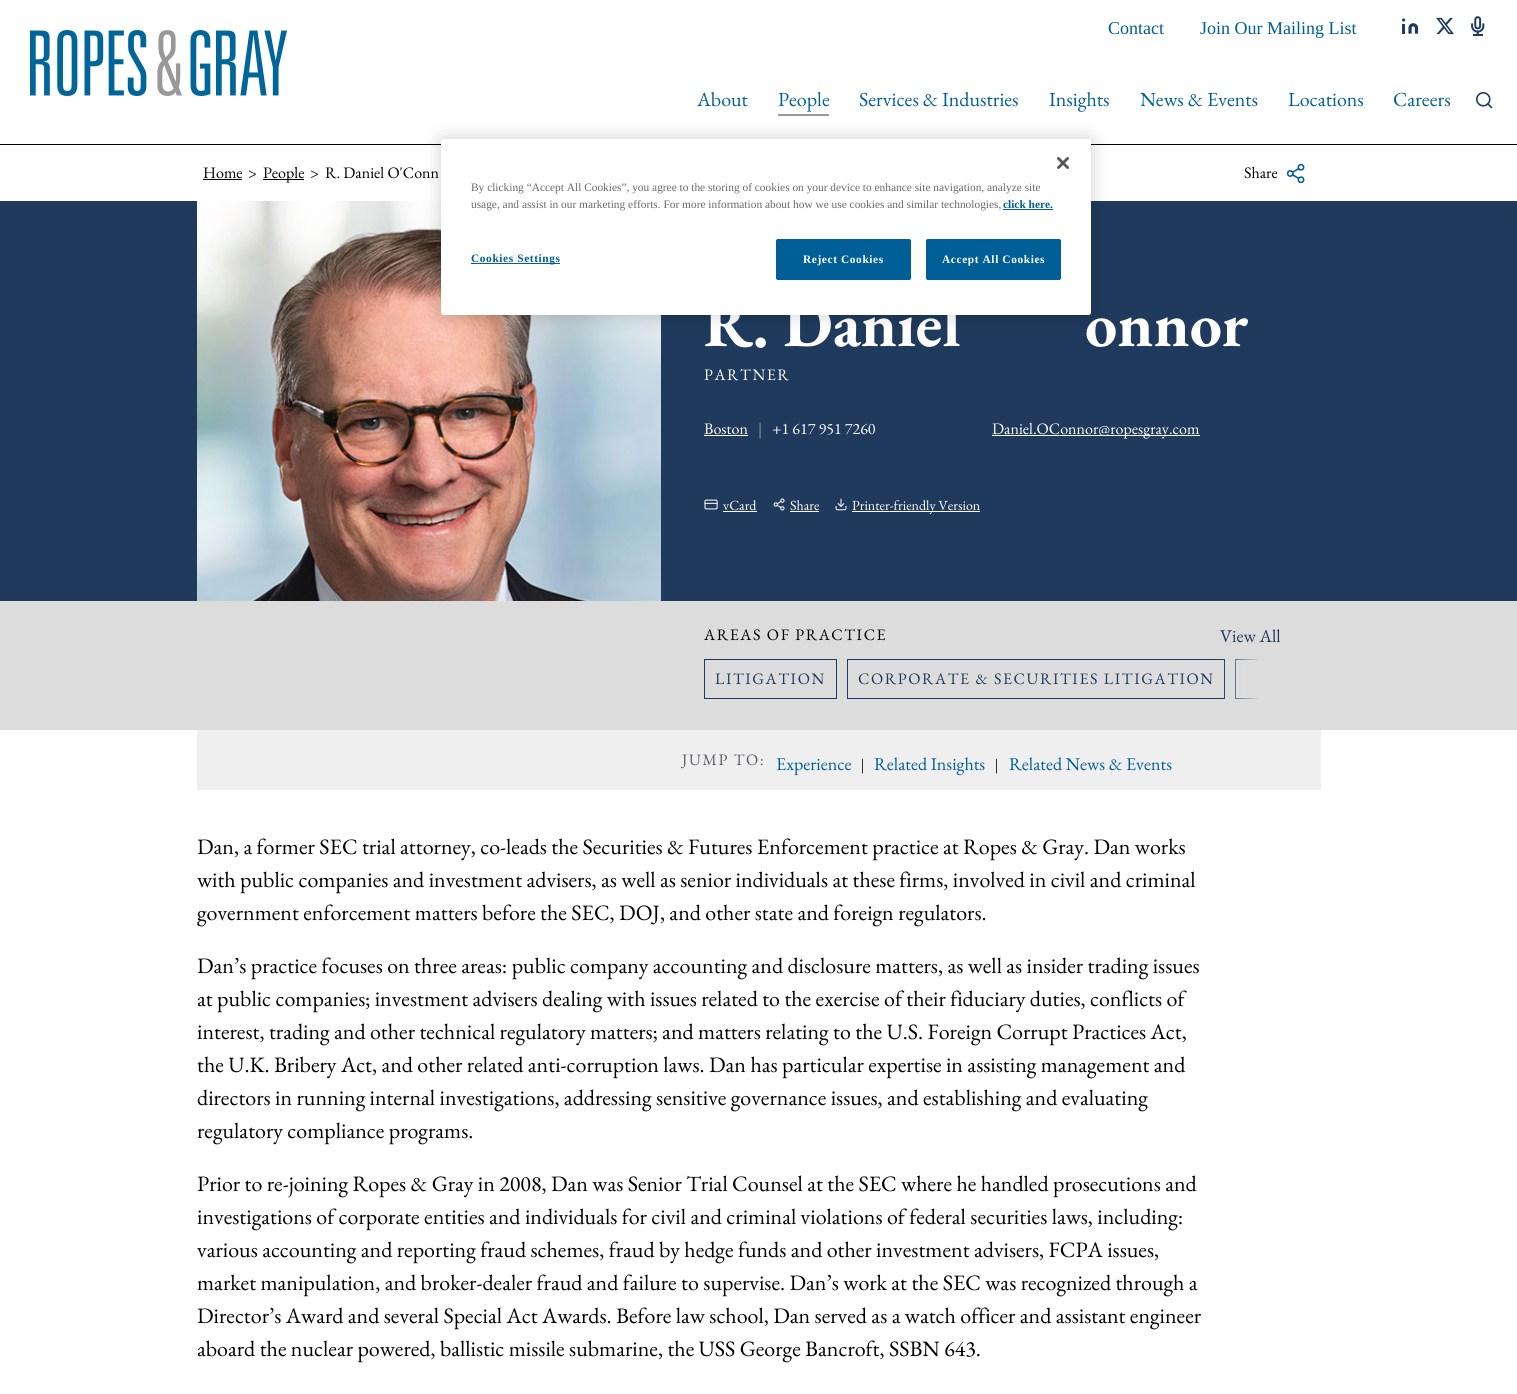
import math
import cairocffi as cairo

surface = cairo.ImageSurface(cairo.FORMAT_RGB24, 1517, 1394)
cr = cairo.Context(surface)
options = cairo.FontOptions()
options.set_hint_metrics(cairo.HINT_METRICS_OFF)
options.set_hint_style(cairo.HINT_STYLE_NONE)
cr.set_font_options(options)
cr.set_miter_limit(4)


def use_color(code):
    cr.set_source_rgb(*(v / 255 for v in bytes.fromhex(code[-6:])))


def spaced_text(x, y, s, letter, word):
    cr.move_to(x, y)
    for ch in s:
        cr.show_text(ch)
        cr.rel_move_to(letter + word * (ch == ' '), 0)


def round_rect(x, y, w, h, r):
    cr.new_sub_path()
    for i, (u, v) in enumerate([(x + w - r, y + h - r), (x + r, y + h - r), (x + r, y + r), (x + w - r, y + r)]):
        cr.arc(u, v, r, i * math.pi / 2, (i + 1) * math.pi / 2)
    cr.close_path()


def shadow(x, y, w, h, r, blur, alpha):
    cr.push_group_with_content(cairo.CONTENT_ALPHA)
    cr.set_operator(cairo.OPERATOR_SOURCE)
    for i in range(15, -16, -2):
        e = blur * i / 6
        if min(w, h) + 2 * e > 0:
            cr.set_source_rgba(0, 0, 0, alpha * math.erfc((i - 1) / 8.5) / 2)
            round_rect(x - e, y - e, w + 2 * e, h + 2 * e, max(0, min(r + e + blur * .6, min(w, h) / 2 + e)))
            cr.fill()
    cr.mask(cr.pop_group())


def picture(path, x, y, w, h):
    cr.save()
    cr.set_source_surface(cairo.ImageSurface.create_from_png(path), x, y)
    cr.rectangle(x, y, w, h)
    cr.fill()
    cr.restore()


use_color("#ffffff")
cr.paint()
use_color("#000000")
cr.rectangle(0, 144, 1517, 1)
cr.fill()
picture("img1.png", 30, 30, 257, 66)
cr.select_font_face("Liberation Serif")
cr.set_font_size(18)
use_color("#005e96")
cr.move_to(1108, 34)
cr.show_text("Contact")
cr.move_to(1200, 34)
cr.show_text("Join Our Mailing List")
picture("img2.png", 1402, 18, 17, 16)
picture("img3.png", 1436, 17, 18, 18)
picture("img4.png", 1471, 16, 14, 20)
cr.select_font_face("EB Garamond")
cr.set_font_size(20)
cr.move_to(697, 106)
cr.show_text("About")
cr.move_to(778, 106)
cr.show_text("People")
use_color("#999999")
cr.rectangle(778, 114, 51, 2)
cr.fill()
use_color("#005e96")
cr.move_to(859, 106)
cr.show_text("Services & Industries")
cr.move_to(1049, 106)
cr.show_text("Insights")
cr.move_to(1140, 106)
cr.show_text("News & Events")
cr.move_to(1288, 106)
cr.show_text("Locations")
cr.move_to(1393, 106)
cr.show_text("Careers")
picture("img5.png", 1476, 92, 17, 17)
cr.set_font_size(16)
use_color("#000000")
cr.move_to(203, 178)
cr.show_text("Home")
cr.rectangle(203, 179, 39, 1)
cr.fill()
cr.move_to(248, 178)
cr.show_text(">")
cr.rectangle(263, 179, 41, 1)
cr.fill()
cr.move_to(263, 178)
cr.show_text("People")
cr.move_to(310, 178)
cr.show_text(">")
cr.move_to(325, 178)
cr.show_text("R. Daniel O'Conn")
cr.move_to(1244, 178)
cr.show_text("Share")
picture("img6.png", 1286, 163, 19, 21)
use_color("#1f3a5d")
cr.rectangle(0, 201, 1517, 400)
cr.fill()
picture("img7.png", 197, 201, 464, 400)
cr.select_font_face("EB Garamond", cairo.FONT_SLANT_NORMAL, cairo.FONT_WEIGHT_BOLD)
cr.set_font_size(64)
use_color("#ffffff")
cr.move_to(704, 346)
cr.show_text("R. Daniel")
cr.move_to(1085, 346)
cr.show_text("onnor")
cr.select_font_face("EB Garamond")
cr.set_font_size(16)
spaced_text(704, 380, "PARTNER", 1.6, 0)
cr.move_to(704, 434)
cr.show_text("Boston")
cr.rectangle(704, 435, 44, 1)
cr.fill()
use_color("#999999")
cr.move_to(758, 434)
cr.show_text("|")
use_color("#ffffff")
cr.move_to(772, 434)
cr.show_text("+1 617 951 7260")
cr.rectangle(992, 435, 208, 1)
cr.fill()
cr.move_to(992, 434)
cr.show_text("Daniel.OConnor@ropesgray.com")
picture("img8.png", 704, 499, 14, 11)
cr.set_font_size(14)
cr.move_to(723, 510)
cr.show_text("vCard")
cr.rectangle(723, 511, 34, 1)
cr.fill()
picture("img9.png", 773, 498, 12, 13)
cr.move_to(790, 510)
cr.show_text("Share")
cr.rectangle(790, 511, 29, 1)
cr.fill()
picture("img10.png", 835, 498, 12, 13)
cr.rectangle(852, 511, 128, 1)
cr.fill()
cr.move_to(852, 510)
cr.show_text("Printer-friendly Version")
use_color("#dcdcdc")
cr.rectangle(0, 601, 1517, 129)
cr.fill()
cr.set_font_size(16)
use_color("#000000")
spaced_text(704, 640, "AREAS OF PRACTICE", 1.6, 0)
cr.set_font_size(18)
use_color("#1f3a5d")
cr.move_to(1220, 642)
cr.show_text("View All")
cr.rectangle(704.5, 659.5, 132, 39)
cr.set_line_width(1)
cr.stroke()
cr.set_font_size(16)
spaced_text(715, 684, "LITIGATION", 1.6, 0)
cr.rectangle(847.5, 659.5, 377, 39)
cr.stroke()
spaced_text(858, 684, "CORPORATE & SECURITIES LITIGATION", 1.6, 0)
cr.save()
cr.rectangle(704, 649, 577, 60)
cr.clip()
cr.rectangle(1235.5, 659.5, 278, 39)
cr.stroke()
cr.restore()
gradient = cairo.LinearGradient(1281, 679, 1221, 679)
gradient.add_color_stop_rgba(0.34, 0.863, 0.863, 0.863, 1)
gradient.add_color_stop_rgba(1, 0.863, 0.863, 0.863, 0)
cr.set_source(gradient)
cr.rectangle(1222, 659, 59, 40)
cr.fill()
use_color("#f0efef")
cr.rectangle(197, 730, 1124, 60)
cr.fill()
use_color("#565f65")
spaced_text(682, 765, "JUMP TO:", 1.6, 0)
cr.set_font_size(18)
use_color("#005e96")
cr.move_to(776, 770)
cr.show_text("Experience")
cr.select_font_face("Liberation Serif")
cr.set_font_size(16)
use_color("#000000")
cr.move_to(861, 770)
cr.show_text("|")
cr.select_font_face("EB Garamond")
cr.set_font_size(18)
use_color("#005e96")
cr.move_to(874, 770)
cr.show_text("Related Insights")
cr.select_font_face("Liberation Serif")
cr.set_font_size(16)
use_color("#000000")
cr.move_to(995, 770)
cr.show_text("|")
cr.select_font_face("EB Garamond")
cr.set_font_size(18)
use_color("#005e96")
cr.move_to(1009, 770)
cr.show_text("Related News & Events")
cr.set_font_size(22)
use_color("#000000")
cr.move_to(197, 854)
cr.show_text("Dan, a former SEC trial attorney, co-leads the Securities & Futures Enforcement practice at Ropes & Gray. Dan works")
cr.move_to(197, 887)
cr.show_text("with public companies and investment advisers, as well as senior individuals at these firms, involved in civil and criminal")
cr.move_to(197, 920)
cr.show_text("government enforcement matters before the SEC, DOJ, and other state and foreign regulators.")
cr.move_to(197, 973)
cr.show_text("Dan’s practice focuses on three areas: public company accounting and disclosure matters, as well as insider trading issues")
cr.move_to(197, 1006)
cr.show_text("at public companies; investment advisers dealing with issues related to the exercise of their fiduciary duties, conflicts of")
cr.move_to(197, 1039)
cr.show_text("interest, trading and other technical regulatory matters; and matters relating to the U.S. Foreign Corrupt Practices Act,")
cr.move_to(197, 1072)
cr.show_text("the U.K. Bribery Act, and other related anti-corruption laws. Dan has particular expertise in assisting management and")
cr.move_to(197, 1105)
cr.show_text("directors in running internal investigations, addressing sensitive governance issues, and establishing and evaluating")
cr.move_to(197, 1138)
cr.show_text("regulatory compliance programs.")
cr.move_to(197, 1191)
cr.show_text("Prior to re-joining Ropes & Gray in 2008, Dan was Senior Trial Counsel at the SEC where he handled prosecutions and")
cr.move_to(197, 1224)
cr.show_text("investigations of corporate entities and individuals for civil and criminal violations of federal securities laws, including:")
cr.move_to(197, 1257)
cr.show_text("various accounting and reporting fraud schemes, fraud by hedge funds and other investment advisers, FCPA issues,")
cr.move_to(197, 1290)
cr.show_text("market manipulation, and broker-dealer fraud and failure to supervise. Dan’s work at the SEC was recognized through a")
cr.move_to(197, 1323)
cr.show_text("Director’s Award and several Special Act Awards. Before law school, Dan served as a watch officer and assistant engineer")
cr.move_to(197, 1356)
cr.show_text("aboard the nuclear powered, ballistic missile submarine, the USS George Bancroft, SSBN 643.")
use_color("#000000")
shadow(441, 139, 650, 176, 2.5, 9, 0.2)
use_color("#ffffff")
round_rect(441, 139, 650, 176, 2.5)
cr.fill()
picture("img11.png", 1057, 157, 12, 12)
cr.select_font_face("Liberation Serif")
cr.set_font_size(11.38)
use_color("#696969")
cr.move_to(471, 191)
cr.show_text("By clicking “Accept All Cookies”, you agree to the storing of cookies on your device to enhance site navigation, analyze site")
cr.move_to(471, 208)
cr.show_text("usage, and assist in our marketing efforts. For more information about how we use cookies and similar technologies,")
cr.select_font_face("Liberation Serif", cairo.FONT_SLANT_NORMAL, cairo.FONT_WEIGHT_BOLD)
use_color("#005e96")
cr.move_to(1003, 208)
cr.show_text("click here.")
use_color("#005f96")
cr.rectangle(1003, 209, 50, 1)
cr.fill()
cr.rectangle(471, 263, 89, 1)
cr.fill()
use_color("#005e96")
spaced_text(471, 262, "Cookies Settings", 0.6, 0)
use_color("#005f96")
round_rect(776.5, 239.5, 134, 40, 1.5)
cr.fill_preserve()
cr.stroke()
use_color("#ffffff")
spaced_text(803, 263, "Reject Cookies", 0.6, 0)
use_color("#005f96")
round_rect(926.5, 239.5, 134, 40, 1.5)
cr.fill_preserve()
cr.stroke()
use_color("#ffffff")
spaced_text(942, 263, "Accept All Cookies", 0.6, 0)
surface.write_to_png("result.png")
